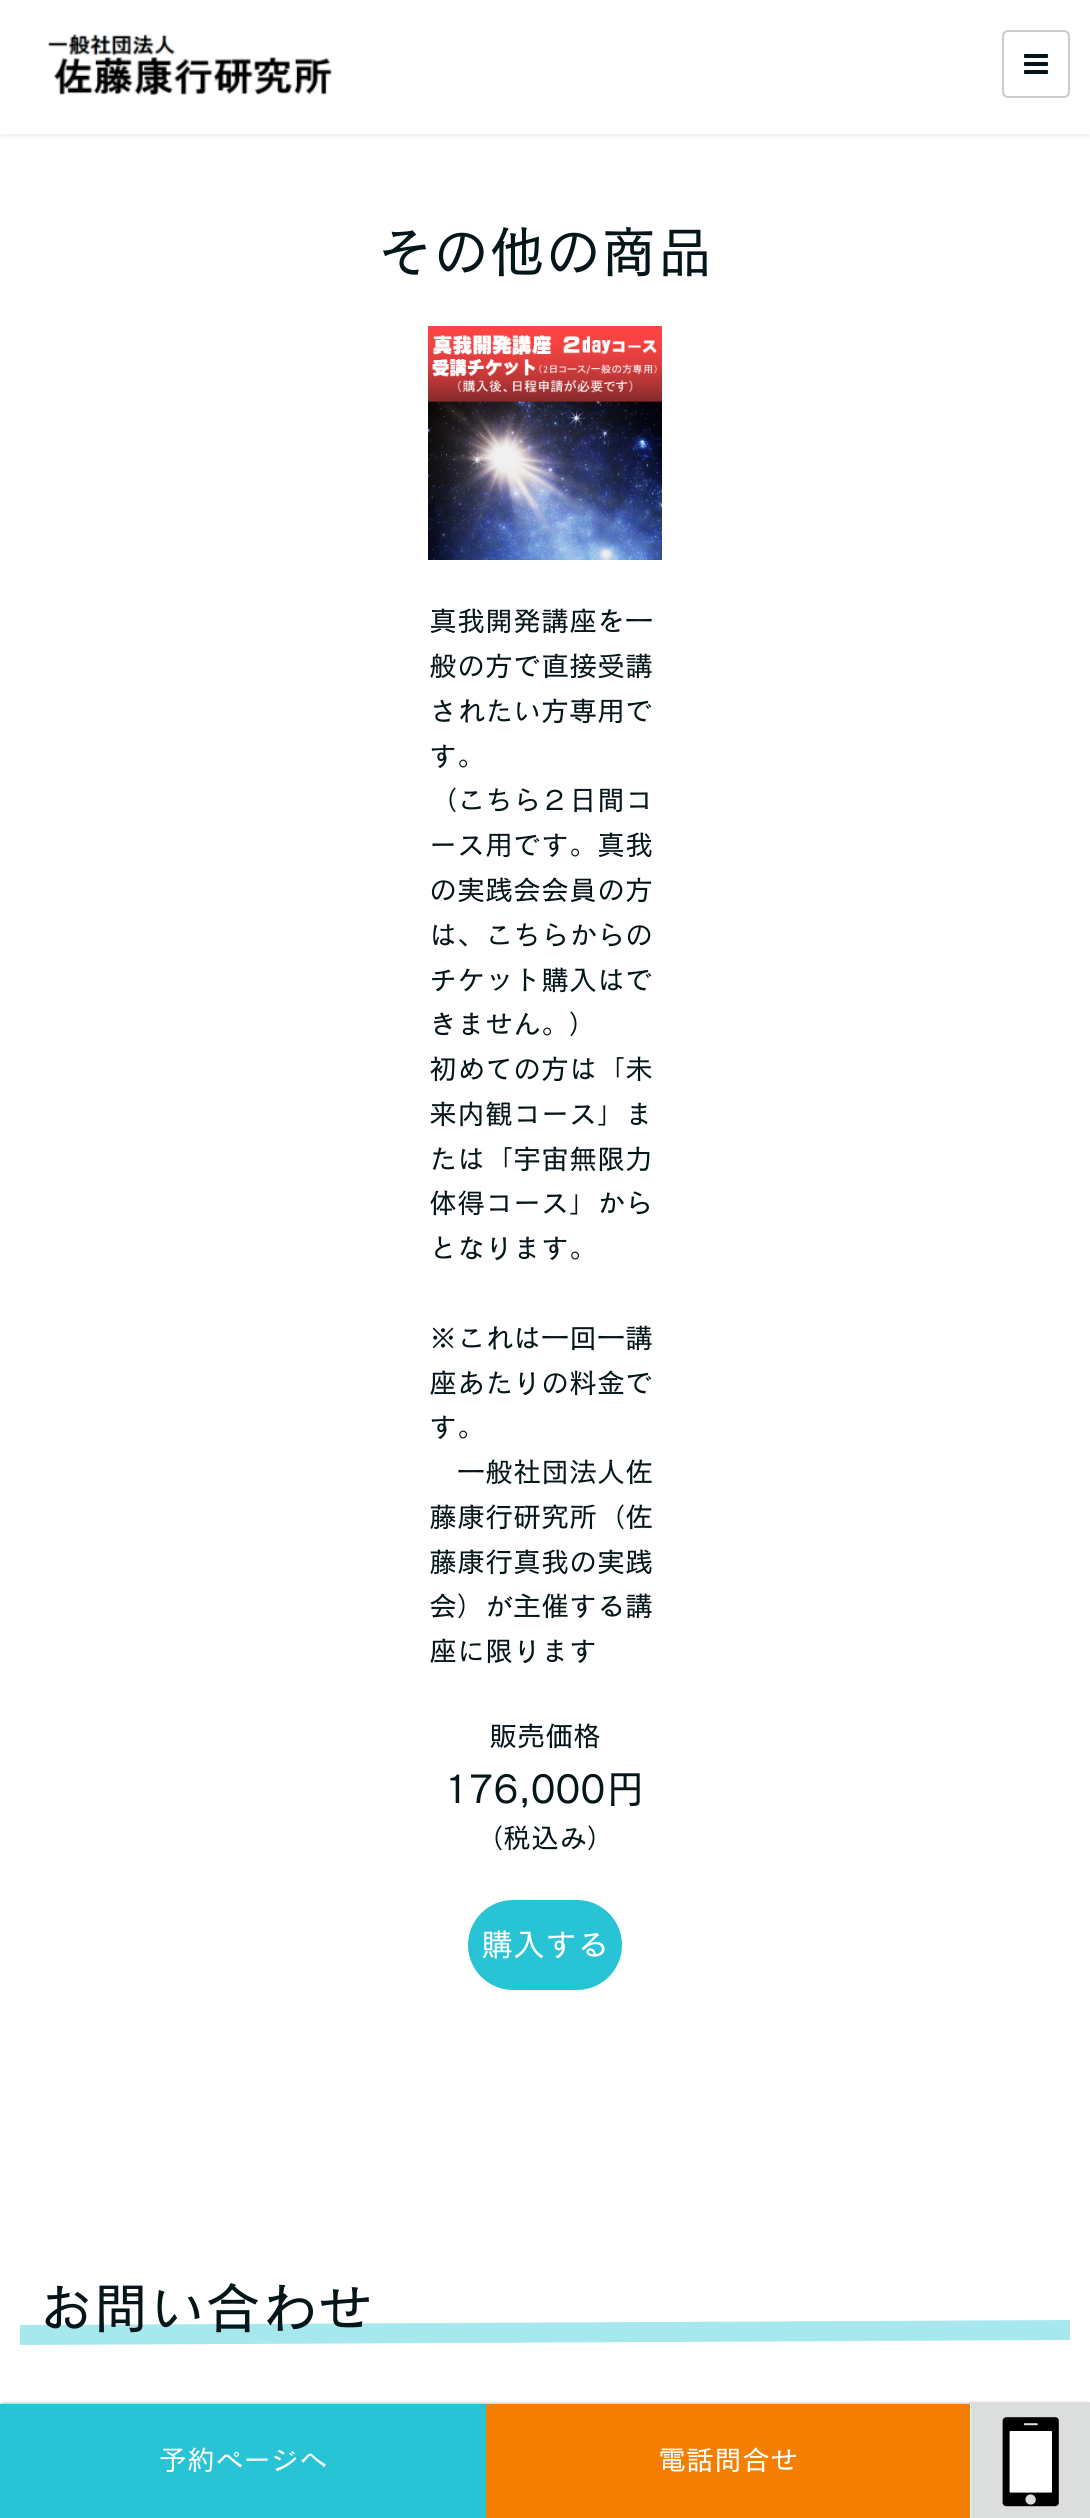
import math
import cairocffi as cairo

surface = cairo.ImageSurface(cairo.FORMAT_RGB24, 1090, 2518)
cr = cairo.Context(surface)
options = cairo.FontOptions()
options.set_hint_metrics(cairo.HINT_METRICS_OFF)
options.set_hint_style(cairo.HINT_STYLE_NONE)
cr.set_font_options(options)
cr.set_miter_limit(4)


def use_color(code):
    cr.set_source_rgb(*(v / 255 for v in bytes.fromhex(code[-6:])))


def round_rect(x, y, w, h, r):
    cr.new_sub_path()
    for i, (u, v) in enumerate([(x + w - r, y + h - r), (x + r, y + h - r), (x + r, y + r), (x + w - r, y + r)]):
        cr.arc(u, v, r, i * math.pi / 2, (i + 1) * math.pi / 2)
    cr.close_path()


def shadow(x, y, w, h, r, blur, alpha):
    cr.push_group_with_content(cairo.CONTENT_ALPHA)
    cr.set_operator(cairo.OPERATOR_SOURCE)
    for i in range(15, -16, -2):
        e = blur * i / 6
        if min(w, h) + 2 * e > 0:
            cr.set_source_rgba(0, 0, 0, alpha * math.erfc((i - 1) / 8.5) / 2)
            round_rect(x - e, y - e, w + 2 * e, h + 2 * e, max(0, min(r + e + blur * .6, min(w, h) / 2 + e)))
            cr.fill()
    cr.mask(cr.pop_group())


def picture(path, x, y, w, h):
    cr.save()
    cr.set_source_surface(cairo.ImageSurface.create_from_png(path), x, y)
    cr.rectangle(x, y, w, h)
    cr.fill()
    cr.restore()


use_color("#ffffff")
cr.paint()
cr.select_font_face("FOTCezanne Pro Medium")
cr.set_font_size(56)
use_color("#05161a")
cr.move_to(377, 272)
cr.show_text("その他の商品")
picture("img1.png", 428, 326, 234, 234)
cr.set_font_size(28)
cr.move_to(429, 631)
cr.show_text("真我開発講座を一")
cr.move_to(429, 676)
cr.show_text("般の方で直接受講")
cr.move_to(429, 721)
cr.show_text("されたい方専用で")
cr.move_to(429, 766)
cr.show_text("す。")
cr.move_to(429, 810)
cr.show_text("（こちら２日間コ")
cr.move_to(429, 855)
cr.show_text("ース用です。真我")
cr.move_to(429, 900)
cr.show_text("の実践会会員の方")
cr.move_to(429, 945)
cr.show_text("は、こちらからの")
cr.move_to(429, 990)
cr.show_text("チケット購入はで")
cr.move_to(429, 1034)
cr.show_text("きません。）")
cr.move_to(429, 1079)
cr.show_text("初めての方は「未")
cr.move_to(429, 1124)
cr.show_text("来内観コース」ま")
cr.move_to(429, 1169)
cr.show_text("たは「宇宙無限力")
cr.move_to(429, 1213)
cr.show_text("体得コース」から")
cr.move_to(429, 1258)
cr.show_text("となります。")
cr.move_to(429, 1348)
cr.show_text("※これは一回一講")
cr.move_to(429, 1393)
cr.show_text("座あたりの料金で")
cr.move_to(429, 1437)
cr.show_text("す。")
cr.move_to(457, 1482)
cr.show_text("一般社団法人佐")
cr.move_to(429, 1527)
cr.show_text("藤康行研究所（佐")
cr.move_to(429, 1572)
cr.show_text("藤康行真我の実践")
cr.move_to(429, 1616)
cr.show_text("会）が主催する講")
cr.move_to(429, 1661)
cr.show_text("座に限ります")
cr.move_to(489, 1746)
cr.show_text("販売価格")
cr.set_font_size(40)
cr.move_to(444, 1803)
cr.show_text("176,000円")
cr.set_font_size(28)
cr.move_to(475, 1848)
cr.show_text("（税込み）")
use_color("#28c3d4")
round_rect(468, 1900, 154, 90, 45)
cr.fill()
cr.set_font_size(32)
use_color("#ffffff")
cr.move_to(481, 1956)
cr.show_text("購入する")
use_color("#a7e7ee")
cr.new_path()
cr.move_to(20, 2325)
cr.line_to(1070, 2320)
cr.line_to(1070, 2340)
cr.line_to(20, 2345)
cr.close_path()
cr.fill()
cr.set_font_size(56)
use_color("#05161a")
cr.move_to(37, 2328)
cr.show_text("お問い合わせ")
cr.save()
cr.rectangle(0, 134, 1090, 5)
cr.clip()
use_color("#dcdcdc")
shadow(0, 2, 1090, 134, 0, 2, 0.5)
cr.restore()
picture("img2.png", 47, 34, 285, 61)
round_rect(1003, 31, 66, 66, 5)
use_color("#cccccc")
cr.stroke()
picture("img3.png", 1024, 54, 24, 20)
use_color("#000000")
shadow(2, 2404, 1086, 110, 0, 2, 0.4)
use_color("#ffffff")
cr.rectangle(970, 2404, 1, 114)
cr.fill()
use_color("#28c3d4")
cr.rectangle(0, 2404, 486, 114)
cr.fill()
cr.set_font_size(28)
use_color("#ffffff")
cr.move_to(159, 2470)
cr.show_text("予約ページへ")
use_color("#f47e00")
cr.rectangle(486, 2404, 484, 114)
cr.fill()
use_color("#ffffff")
cr.move_to(658, 2470)
cr.show_text("電話問合せ")
picture("img4.png", 971, 2402, 119, 116)
surface.write_to_png("result.png")
